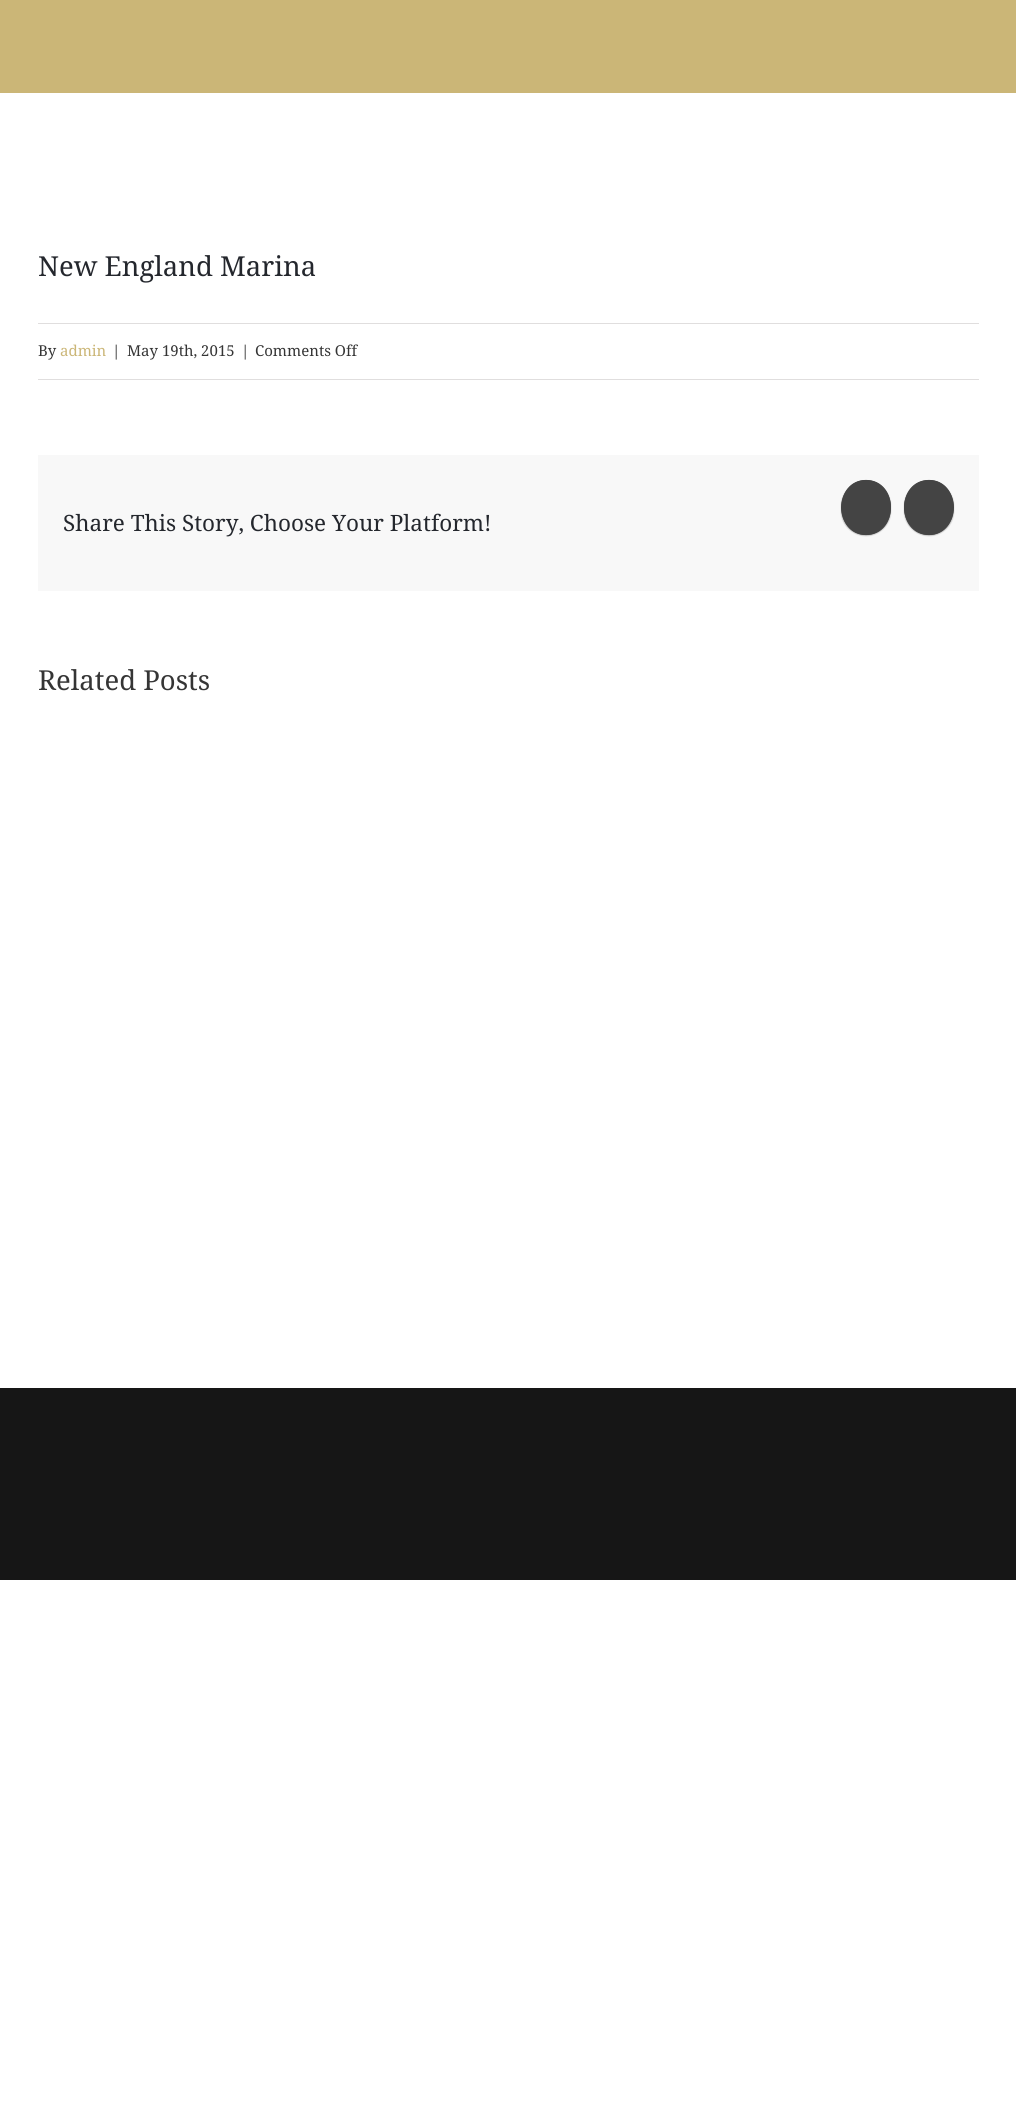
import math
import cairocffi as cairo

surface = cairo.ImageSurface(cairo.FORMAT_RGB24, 1016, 2108)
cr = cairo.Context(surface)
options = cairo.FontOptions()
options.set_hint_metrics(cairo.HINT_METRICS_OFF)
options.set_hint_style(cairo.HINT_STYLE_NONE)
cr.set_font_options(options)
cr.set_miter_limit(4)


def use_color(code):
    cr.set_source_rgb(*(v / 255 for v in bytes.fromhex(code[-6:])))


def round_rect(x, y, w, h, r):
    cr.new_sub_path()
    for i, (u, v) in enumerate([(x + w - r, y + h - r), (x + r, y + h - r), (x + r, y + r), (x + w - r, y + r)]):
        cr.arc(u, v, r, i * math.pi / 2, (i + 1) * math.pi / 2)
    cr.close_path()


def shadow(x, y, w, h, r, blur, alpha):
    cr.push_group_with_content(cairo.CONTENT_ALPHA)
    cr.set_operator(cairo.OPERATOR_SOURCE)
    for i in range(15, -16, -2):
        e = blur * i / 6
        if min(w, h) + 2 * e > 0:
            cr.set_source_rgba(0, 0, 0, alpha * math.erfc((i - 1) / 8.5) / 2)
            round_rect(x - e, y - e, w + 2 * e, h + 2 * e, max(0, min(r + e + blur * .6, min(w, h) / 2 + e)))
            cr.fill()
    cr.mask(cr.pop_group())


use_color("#ffffff")
cr.paint()
use_color("#cbb677")
cr.rectangle(0, 0, 1016, 93)
cr.fill()
cr.select_font_face("Droid Serif")
cr.set_font_size(27.5)
use_color("#24272d")
cr.move_to(38, 276)
cr.show_text("New England Marina")
use_color("#e0dede")
cr.rectangle(38, 323, 941, 1)
cr.fill()
cr.rectangle(38, 379, 941, 1)
cr.fill()
cr.set_font_size(15)
use_color("#353535")
cr.move_to(38, 356)
cr.show_text("By")
use_color("#cbb677")
cr.move_to(60, 356)
cr.show_text("admin")
use_color("#353535")
cr.move_to(112, 356)
cr.show_text("|")
cr.move_to(127, 356)
cr.show_text("May 19th, 2015")
cr.move_to(241, 356)
cr.show_text("|")
cr.move_to(255, 356)
cr.show_text("Comments Off")
use_color("#f8f8f8")
cr.rectangle(38, 455, 941, 136)
cr.fill()
cr.set_font_size(22.5)
use_color("#24272d")
cr.move_to(63, 531)
cr.show_text("Share This Story, Choose Your Platform!")
use_color("#000000")
shadow(841, 481, 50, 55, 25, 0.5, 0.2)
use_color("#444444")
cr.new_path()
cr.move_to(866, 480)
cr.curve_to(880, 480, 891, 492.5, 891, 507.5)
cr.curve_to(891, 522.5, 880, 535, 866, 535)
cr.curve_to(852, 535, 841, 522.5, 841, 507.5)
cr.curve_to(841, 492.5, 852, 480, 866, 480)
cr.close_path()
cr.fill()
cr.new_path()
cr.move_to(866, 480.5)
cr.curve_to(898.5, 480.5, 898.5, 534.5, 866, 534.5)
cr.curve_to(834, 534.5, 834, 480.5, 866, 480.5)
cr.close_path()
cr.set_line_width(1.2)
cr.stroke()
use_color("#000000")
shadow(904, 481, 50, 55, 25, 0.5, 0.2)
use_color("#444444")
cr.new_path()
cr.move_to(929, 480)
cr.curve_to(943, 480, 954, 492.5, 954, 507.5)
cr.curve_to(954, 522.5, 943, 535, 929, 535)
cr.curve_to(915, 535, 904, 522.5, 904, 507.5)
cr.curve_to(904, 492.5, 915, 480, 929, 480)
cr.close_path()
cr.fill()
cr.new_path()
cr.move_to(929, 480.5)
cr.curve_to(961, 480.5, 961, 534.5, 929, 534.5)
cr.curve_to(896.5, 534.5, 896.5, 480.5, 929, 480.5)
cr.close_path()
cr.stroke()
cr.set_font_size(27.5)
use_color("#353535")
cr.move_to(38, 690)
cr.show_text("Related Posts")
use_color("#161616")
cr.rectangle(0, 1388, 1016, 192)
cr.fill()
surface.write_to_png("result.png")
